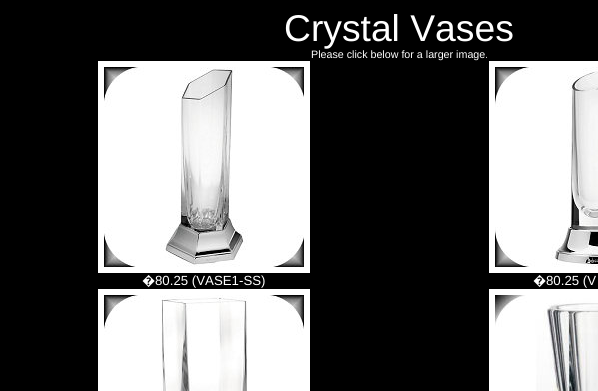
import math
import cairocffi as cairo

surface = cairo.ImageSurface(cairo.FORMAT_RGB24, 598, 391)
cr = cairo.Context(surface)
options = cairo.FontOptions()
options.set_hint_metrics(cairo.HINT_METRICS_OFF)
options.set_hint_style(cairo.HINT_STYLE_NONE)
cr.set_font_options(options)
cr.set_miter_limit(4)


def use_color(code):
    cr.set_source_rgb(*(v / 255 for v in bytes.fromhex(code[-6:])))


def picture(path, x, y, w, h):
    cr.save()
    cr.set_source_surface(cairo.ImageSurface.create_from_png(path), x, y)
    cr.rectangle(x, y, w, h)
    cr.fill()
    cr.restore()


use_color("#000000")
cr.paint()
cr.select_font_face("Liberation Sans")
cr.set_font_size(37.25)
use_color("#ffffff")
cr.move_to(284, 41)
cr.show_text("Crystal Vases")
cr.set_font_size(10.7)
cr.move_to(311, 58)
cr.show_text("Please click below for a larger image.")
cr.rectangle(98, 61, 212, 212)
cr.fill()
picture("img1.png", 104, 67, 200, 200)
cr.select_font_face("Noto Sans")
cr.set_font_size(13.25)
cr.move_to(142, 285)
cr.show_text("�")
cr.select_font_face("Liberation Sans")
cr.move_to(155, 285)
cr.show_text("80.25 (VASE1-SS)")
cr.rectangle(489, 61, 109, 212)
cr.fill()
picture("img2.png", 495, 67, 103, 200)
cr.select_font_face("Noto Sans")
cr.move_to(533, 285)
cr.show_text("�")
cr.select_font_face("Liberation Sans")
cr.move_to(546, 285)
cr.show_text("80.25 (V")
cr.rectangle(98, 289, 212, 102)
cr.fill()
picture("img3.png", 104, 295, 200, 96)
cr.rectangle(489, 289, 109, 102)
cr.fill()
picture("img4.png", 495, 295, 103, 96)
surface.write_to_png("result.png")
